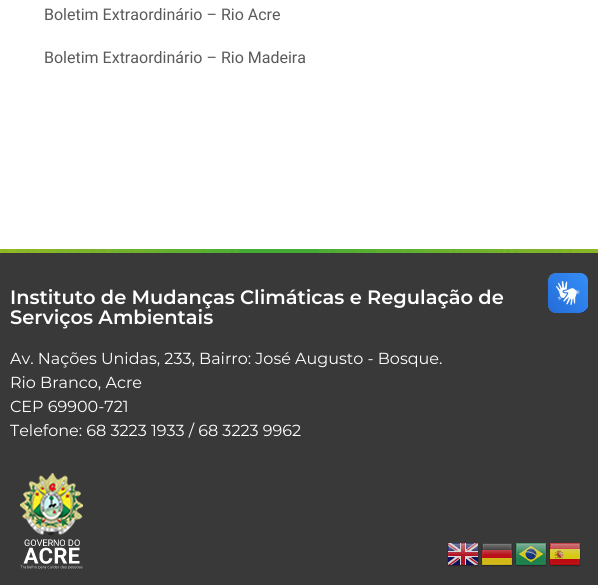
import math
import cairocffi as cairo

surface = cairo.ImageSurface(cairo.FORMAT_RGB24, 598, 585)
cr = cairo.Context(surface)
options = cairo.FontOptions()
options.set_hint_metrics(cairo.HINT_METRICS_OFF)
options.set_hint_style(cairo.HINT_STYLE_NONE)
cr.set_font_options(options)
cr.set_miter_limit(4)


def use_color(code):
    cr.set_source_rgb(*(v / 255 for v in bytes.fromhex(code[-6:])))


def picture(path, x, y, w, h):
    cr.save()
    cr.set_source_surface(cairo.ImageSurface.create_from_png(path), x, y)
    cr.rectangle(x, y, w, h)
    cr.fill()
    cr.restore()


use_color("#ffffff")
cr.paint()
cr.select_font_face("Heebo")
cr.set_font_size(16)
use_color("#5a5a5a")
cr.move_to(44, 20)
cr.show_text("Boletim Extraordinário – Rio Acre")
cr.move_to(44, 63)
cr.show_text("Boletim Extraordinário – Rio Madeira")
picture("img1.png", 0, 249, 598, 4)
use_color("#393939")
cr.rectangle(0, 253, 598, 332)
cr.fill()
cr.select_font_face("Montserrat SemiBold")
cr.set_font_size(19.4)
use_color("#ffffff")
cr.move_to(10, 304)
cr.show_text("Instituto de Mudanças Climáticas e Regulação de")
cr.move_to(10, 324)
cr.show_text("Serviços Ambientais")
cr.select_font_face("Montserrat")
cr.set_font_size(16)
cr.move_to(10, 364)
cr.show_text("Av. Nações Unidas, 233, Bairro: José Augusto - Bosque.")
cr.move_to(10, 388)
cr.show_text("Rio Branco, Acre")
cr.move_to(10, 412)
cr.show_text("CEP 69900-721")
cr.move_to(10, 436)
cr.show_text("Telefone: 68 3223 1933 / 68 3223 9962")
picture("img2.png", 20, 473, 63, 96)
picture("img3.png", 548, 273, 40, 40)
picture("img4.png", 548, 273, 40, 40)
picture("img5.png", 447, 543, 32, 24)
picture("img6.png", 481, 543, 32, 24)
picture("img7.png", 515, 543, 32, 24)
picture("img8.png", 549, 543, 32, 24)
surface.write_to_png("result.png")
